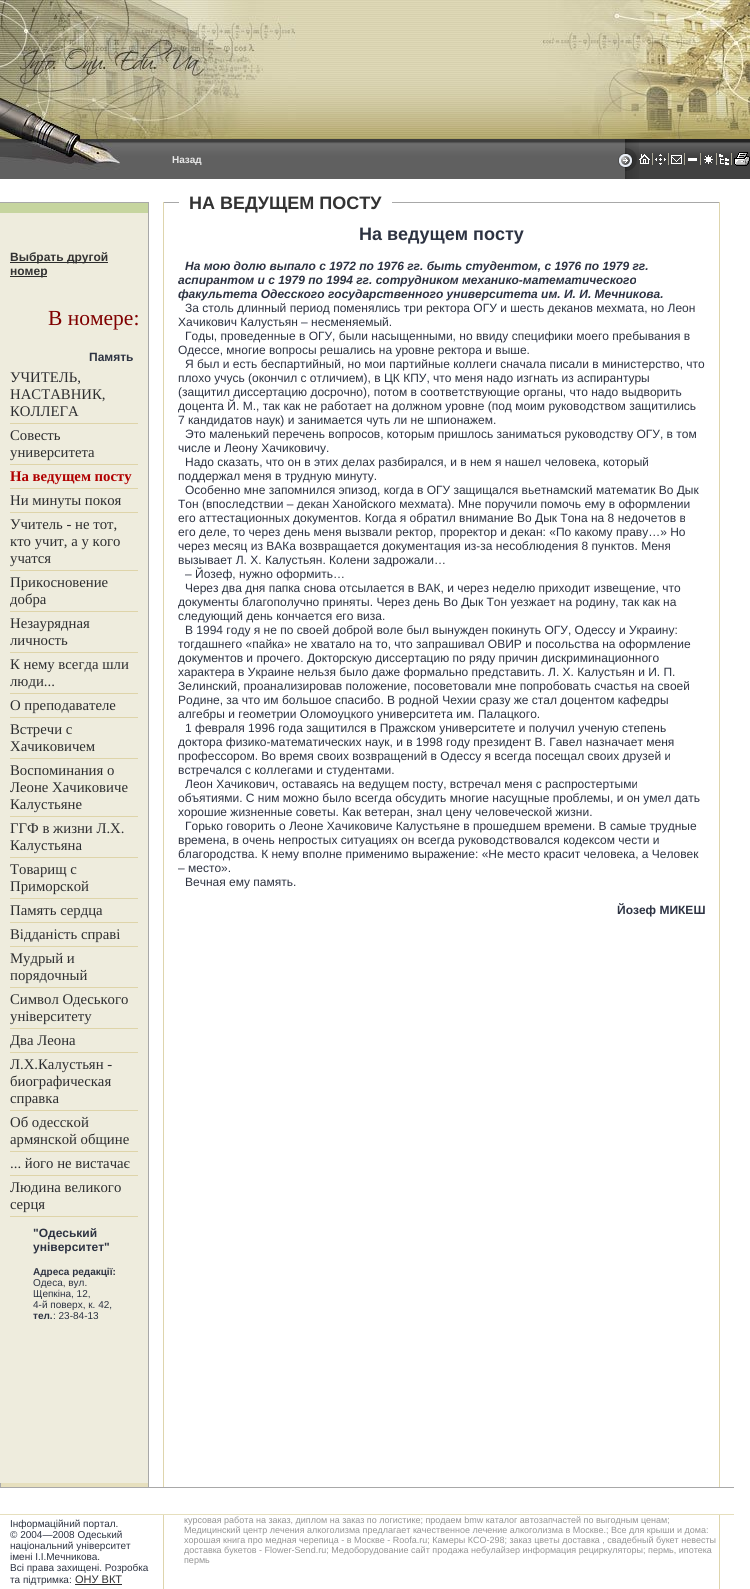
import math
import cairocffi as cairo

surface = cairo.ImageSurface(cairo.FORMAT_RGB24, 750, 1589)
cr = cairo.Context(surface)
options = cairo.FontOptions()
options.set_hint_metrics(cairo.HINT_METRICS_OFF)
options.set_hint_style(cairo.HINT_STYLE_NONE)
cr.set_font_options(options)
cr.set_miter_limit(4)


def use_color(code):
    cr.set_source_rgb(*(v / 255 for v in bytes.fromhex(code[-6:])))


def picture(path, x, y, w, h):
    cr.save()
    cr.set_source_surface(cairo.ImageSurface.create_from_png(path), x, y)
    cr.rectangle(x, y, w, h)
    cr.fill()
    cr.restore()


use_color("#ffffff")
cr.paint()
picture("img1.png", 296, 0, 244, 139)
picture("img2.png", 0, 0, 296, 139)
picture("img3.png", 540, 0, 210, 139)
picture("img4.png", 0, 139, 158, 40)
picture("img5.png", 0, 139, 120, 31)
picture("img6.png", 158, 139, 457, 40)
cr.select_font_face("Liberation Sans", cairo.FONT_SLANT_NORMAL, cairo.FONT_WEIGHT_BOLD)
cr.set_font_size(10)
use_color("#e8e8e8")
cr.move_to(172, 163)
cr.show_text("Назад")
picture("img7.png", 639, 139, 111, 40)
picture("img8.png", 615, 139, 24, 40)
picture("img9.png", 639, 154, 11, 10)
use_color("#aaa796")
cr.rectangle(652, 153, 1, 12)
cr.fill()
picture("img10.png", 655, 154, 11, 11)
cr.rectangle(668, 153, 1, 12)
cr.fill()
picture("img11.png", 671, 155, 11, 9)
cr.rectangle(684, 153, 1, 12)
cr.fill()
use_color("#ffffff")
cr.rectangle(688, 158, 9, 3)
cr.fill()
use_color("#aaa796")
cr.rectangle(700, 153, 1, 12)
cr.fill()
picture("img12.png", 704, 155, 9, 9)
cr.rectangle(716, 153, 1, 12)
cr.fill()
picture("img13.png", 719, 154, 10, 11)
cr.rectangle(731, 153, 1, 12)
cr.fill()
picture("img14.png", 734, 152, 16, 14)
use_color("#eeecdd")
cr.rectangle(0, 213, 148, 1270)
cr.fill()
picture("img15.png", 0, 179, 148, 34)
use_color("#a8a8a8")
cr.rectangle(148, 202, 1, 1285)
cr.fill()
use_color("#2d2d2d")
cr.rectangle(10, 262, 98, 1)
cr.fill()
cr.set_font_size(12)
use_color("#333333")
cr.move_to(10, 261)
cr.show_text("Выбрать другой")
use_color("#2d2d2d")
cr.rectangle(10, 276, 37, 1)
cr.fill()
use_color("#333333")
cr.move_to(10, 275)
cr.show_text("номер")
cr.select_font_face("Liberation Serif")
cr.set_font_size(21.5)
use_color("#800000")
cr.move_to(48, 325)
cr.show_text("В номере:")
cr.select_font_face("Liberation Sans", cairo.FONT_SLANT_NORMAL, cairo.FONT_WEIGHT_BOLD)
cr.set_font_size(12)
use_color("#2d3342")
cr.move_to(89, 361)
cr.show_text("Память")
cr.select_font_face("Liberation Serif")
cr.set_font_size(14.75)
use_color("#2d2e30")
cr.move_to(10, 382)
cr.show_text("УЧИТЕЛЬ,")
cr.move_to(10, 399)
cr.show_text("НАСТАВНИК,")
cr.move_to(10, 416)
cr.show_text("КОЛЛЕГА")
use_color("#ded4a9")
cr.rectangle(10, 423, 128, 1)
cr.fill()
use_color("#2d2e30")
cr.move_to(10, 440)
cr.show_text("Совесть")
cr.move_to(10, 457)
cr.show_text("университета")
use_color("#ded4a9")
cr.rectangle(10, 464, 128, 1)
cr.fill()
cr.select_font_face("Liberation Serif", cairo.FONT_SLANT_NORMAL, cairo.FONT_WEIGHT_BOLD)
use_color("#b00000")
cr.move_to(10, 481)
cr.show_text("На ведущем посту")
use_color("#ded4a9")
cr.rectangle(10, 488, 128, 1)
cr.fill()
cr.select_font_face("Liberation Serif")
use_color("#2d2e30")
cr.move_to(10, 505)
cr.show_text("Ни минуты покоя")
use_color("#ded4a9")
cr.rectangle(10, 512, 128, 1)
cr.fill()
use_color("#2d2e30")
cr.move_to(10, 529)
cr.show_text("Учитель - не тот,")
cr.move_to(10, 546)
cr.show_text("кто учит, а у кого")
cr.move_to(10, 563)
cr.show_text("учатся")
use_color("#ded4a9")
cr.rectangle(10, 570, 128, 1)
cr.fill()
use_color("#2d2e30")
cr.move_to(10, 587)
cr.show_text("Прикосновение")
cr.move_to(10, 604)
cr.show_text("добра")
use_color("#ded4a9")
cr.rectangle(10, 611, 128, 1)
cr.fill()
use_color("#2d2e30")
cr.move_to(10, 628)
cr.show_text("Незаурядная")
cr.move_to(10, 645)
cr.show_text("личность")
use_color("#ded4a9")
cr.rectangle(10, 652, 128, 1)
cr.fill()
use_color("#2d2e30")
cr.move_to(10, 669)
cr.show_text("К нему всегда шли")
cr.move_to(10, 686)
cr.show_text("люди...")
use_color("#ded4a9")
cr.rectangle(10, 693, 128, 1)
cr.fill()
use_color("#2d2e30")
cr.move_to(10, 710)
cr.show_text("О преподавателе")
use_color("#ded4a9")
cr.rectangle(10, 717, 128, 1)
cr.fill()
use_color("#2d2e30")
cr.move_to(10, 734)
cr.show_text("Встречи с")
cr.move_to(10, 751)
cr.show_text("Хачиковичем")
use_color("#ded4a9")
cr.rectangle(10, 758, 128, 1)
cr.fill()
use_color("#2d2e30")
cr.move_to(10, 775)
cr.show_text("Воспоминания о")
cr.move_to(10, 792)
cr.show_text("Леоне Хачиковиче")
cr.move_to(10, 809)
cr.show_text("Калустьяне")
use_color("#ded4a9")
cr.rectangle(10, 816, 128, 1)
cr.fill()
use_color("#2d2e30")
cr.move_to(10, 833)
cr.show_text("ГГФ в жизни Л.Х.")
cr.move_to(10, 850)
cr.show_text("Калустьяна")
use_color("#ded4a9")
cr.rectangle(10, 857, 128, 1)
cr.fill()
use_color("#2d2e30")
cr.move_to(10, 874)
cr.show_text("Товарищ с")
cr.move_to(10, 891)
cr.show_text("Приморской")
use_color("#ded4a9")
cr.rectangle(10, 898, 128, 1)
cr.fill()
use_color("#2d2e30")
cr.move_to(10, 915)
cr.show_text("Память сердца")
use_color("#ded4a9")
cr.rectangle(10, 922, 128, 1)
cr.fill()
use_color("#2d2e30")
cr.move_to(10, 939)
cr.show_text("Відданість справі")
use_color("#ded4a9")
cr.rectangle(10, 946, 128, 1)
cr.fill()
use_color("#2d2e30")
cr.move_to(10, 963)
cr.show_text("Мудрый и")
cr.move_to(10, 980)
cr.show_text("порядочный")
use_color("#ded4a9")
cr.rectangle(10, 987, 128, 1)
cr.fill()
use_color("#2d2e30")
cr.move_to(10, 1004)
cr.show_text("Символ Одеського")
cr.move_to(10, 1021)
cr.show_text("університету")
use_color("#ded4a9")
cr.rectangle(10, 1028, 128, 1)
cr.fill()
use_color("#2d2e30")
cr.move_to(10, 1045)
cr.show_text("Два Леона")
use_color("#ded4a9")
cr.rectangle(10, 1052, 128, 1)
cr.fill()
use_color("#2d2e30")
cr.move_to(10, 1069)
cr.show_text("Л.Х.Калустьян -")
cr.move_to(10, 1086)
cr.show_text("биографическая")
cr.move_to(10, 1103)
cr.show_text("справка")
use_color("#ded4a9")
cr.rectangle(10, 1110, 128, 1)
cr.fill()
use_color("#2d2e30")
cr.move_to(10, 1127)
cr.show_text("Об одесской")
cr.move_to(10, 1144)
cr.show_text("армянской общине")
use_color("#ded4a9")
cr.rectangle(10, 1151, 128, 1)
cr.fill()
use_color("#2d2e30")
cr.move_to(10, 1168)
cr.show_text("... його не вистачає")
use_color("#ded4a9")
cr.rectangle(10, 1175, 128, 1)
cr.fill()
use_color("#2d2e30")
cr.move_to(10, 1192)
cr.show_text("Людина великого")
cr.move_to(10, 1209)
cr.show_text("серця")
use_color("#ded4a9")
cr.rectangle(10, 1216, 128, 1)
cr.fill()
cr.select_font_face("Liberation Sans", cairo.FONT_SLANT_NORMAL, cairo.FONT_WEIGHT_BOLD)
cr.set_font_size(12)
use_color("#2d3342")
cr.move_to(33, 1237)
cr.show_text("\"Одеський")
cr.move_to(33, 1251)
cr.show_text("університет\"")
cr.set_font_size(10)
cr.move_to(33, 1275)
cr.show_text("Адреса редакції:")
cr.select_font_face("Liberation Sans")
cr.move_to(33, 1286)
cr.show_text("Одеса, вул.")
cr.move_to(33, 1297)
cr.show_text("Щепкіна, 12,")
cr.move_to(33, 1308)
cr.show_text("4-й поверх, к. 42,")
cr.select_font_face("Liberation Sans", cairo.FONT_SLANT_NORMAL, cairo.FONT_WEIGHT_BOLD)
cr.move_to(33, 1319)
cr.show_text("тел.")
cr.select_font_face("Liberation Sans")
cr.move_to(53, 1319)
cr.show_text(": 23-84-13")
use_color("#e6dfbd")
cr.rectangle(0, 1483, 148, 4)
cr.fill()
use_color("#a8a8a8")
cr.rectangle(0, 1483, 1, 4)
cr.fill()
use_color("#ded5ad")
cr.rectangle(163, 202, 1, 1285)
cr.fill()
use_color("#a8a8a8")
cr.rectangle(164, 202, 555, 1)
cr.fill()
use_color("#ffffff")
cr.rectangle(179, 202, 213, 1)
cr.fill()
cr.select_font_face("Liberation Sans", cairo.FONT_SLANT_NORMAL, cairo.FONT_WEIGHT_BOLD)
cr.set_font_size(18)
use_color("#333333")
cr.move_to(189, 209)
cr.show_text("НА ВЕДУЩЕМ ПОСТУ")
use_color("#ded5ad")
cr.rectangle(719, 202, 1, 1285)
cr.fill()
use_color("#2d3342")
cr.move_to(359, 240)
cr.show_text("На ведущем посту")
cr.select_font_face("Liberation Sans", cairo.FONT_SLANT_ITALIC, cairo.FONT_WEIGHT_BOLD)
cr.set_font_size(12)
cr.move_to(185, 270)
cr.show_text("На мою долю выпало с 1972 по 1976 гг. быть студентом, с 1976 по 1979 гг.")
cr.move_to(178, 284)
cr.show_text("аспирантом и с 1979 по 1994 гг. сотрудником механико-математического")
cr.move_to(178, 298)
cr.show_text("факультета Одесского государственного университета им. И. И. Мечникова.")
cr.select_font_face("Liberation Sans")
cr.move_to(185, 312)
cr.show_text("За столь длинный период поменялись три ректора ОГУ и шесть деканов мехмата, но Леон")
cr.move_to(178, 326)
cr.show_text("Хачикович Калустьян – несменяемый.")
cr.move_to(185, 340)
cr.show_text("Годы, проведенные в ОГУ, были насыщенными, но ввиду специфики моего пребывания в")
cr.move_to(178, 354)
cr.show_text("Одессе, многие вопросы решались на уровне ректора и выше.")
cr.move_to(185, 368)
cr.show_text("Я был и есть беспартийный, но мои партийные коллеги сначала писали в министерство, что")
cr.move_to(178, 382)
cr.show_text("плохо учусь (окончил с отличием), в ЦК КПУ, что меня надо изгнать из аспирантуры")
cr.move_to(178, 396)
cr.show_text("(защитил диссертацию досрочно), потом в соответствующие органы, что надо выдворить")
cr.move_to(178, 410)
cr.show_text("доцента Й. М., так как не работает на должном уровне (под моим руководством защитились")
cr.move_to(178, 424)
cr.show_text("7 кандидатов наук) и занимается чуть ли не шпионажем.")
cr.move_to(185, 438)
cr.show_text("Это маленький перечень вопросов, которым пришлось заниматься руководству ОГУ, в том")
cr.move_to(178, 452)
cr.show_text("числе и Леону Хачиковичу.")
cr.move_to(185, 466)
cr.show_text("Надо сказать, что он в этих делах разбирался, и в нем я нашел человека, который")
cr.move_to(178, 480)
cr.show_text("поддержал меня в трудную минуту.")
cr.move_to(185, 494)
cr.show_text("Особенно мне запомнился эпизод, когда в ОГУ защищался вьетнамский математик Во Дык")
cr.move_to(178, 508)
cr.show_text("Тон (впоследствии – декан Ханойского мехмата). Мне поручили помочь ему в оформлении")
cr.move_to(178, 522)
cr.show_text("его аттестационных документов. Когда я обратил внимание Во Дык Тона на 8 недочетов в")
cr.move_to(178, 536)
cr.show_text("его деле, то через день меня вызвали ректор, проректор и декан: «По какому праву…» Но")
cr.move_to(178, 550)
cr.show_text("через месяц из ВАКа возвращается документация из-за несоблюдения 8 пунктов. Меня")
cr.move_to(178, 564)
cr.show_text("вызывает Л. Х. Калустьян. Колени задрожали…")
cr.move_to(185, 578)
cr.show_text("– Йозеф, нужно оформить…")
cr.move_to(185, 592)
cr.show_text("Через два дня папка снова отсылается в ВАК, и через неделю приходит извещение, что")
cr.move_to(178, 606)
cr.show_text("документы благополучно приняты. Через день Во Дык Тон уезжает на родину, так как на")
cr.move_to(178, 620)
cr.show_text("следующий день кончается его виза.")
cr.move_to(185, 634)
cr.show_text("В 1994 году я не по своей доброй воле был вынужден покинуть ОГУ, Одессу и Украину:")
cr.move_to(178, 648)
cr.show_text("тогдашнего «пайка» не хватало на то, что запрашивал ОВИР и посольства на оформление")
cr.move_to(178, 662)
cr.show_text("документов и прочего. Докторскую диссертацию по ряду причин дискриминационного")
cr.move_to(178, 676)
cr.show_text("характера в Украине нельзя было даже формально представить. Л. Х. Калустьян и И. П.")
cr.move_to(178, 690)
cr.show_text("Зелинский, проанализировав положение, посоветовали мне попробовать счастья на своей")
cr.move_to(178, 704)
cr.show_text("Родине, за что им большое спасибо. В родной Чехии сразу же стал доцентом кафедры")
cr.move_to(178, 718)
cr.show_text("алгебры и геометрии Оломоуцкого университета им. Палацкого.")
cr.move_to(185, 732)
cr.show_text("1 февраля 1996 года защитился в Пражском университете и получил ученую степень")
cr.move_to(178, 746)
cr.show_text("доктора физико-математических наук, и в 1998 году президент В. Гавел назначает меня")
cr.move_to(178, 760)
cr.show_text("профессором. Во время своих возвращений в Одессу я всегда посещал своих друзей и")
cr.move_to(178, 774)
cr.show_text("встречался с коллегами и студентами.")
cr.move_to(185, 788)
cr.show_text("Леон Хачикович, оставаясь на ведущем посту, встречал меня с распростертыми")
cr.move_to(178, 802)
cr.show_text("объятиями. С ним можно было всегда обсудить многие насущные проблемы, и он умел дать")
cr.move_to(178, 816)
cr.show_text("хорошие жизненные советы. Как ветеран, знал цену человеческой жизни.")
cr.move_to(185, 830)
cr.show_text("Горько говорить о Леоне Хачиковиче Калустьяне в прошедшем времени. В самые трудные")
cr.move_to(178, 844)
cr.show_text("времена, в очень непростых ситуациях он всегда руководствовался кодексом чести и")
cr.move_to(178, 858)
cr.show_text("благородства. К нему вполне применимо выражение: «Не место красит человека, а Человек")
cr.move_to(178, 872)
cr.show_text("– место».")
cr.move_to(185, 886)
cr.show_text("Вечная ему память.")
cr.select_font_face("Liberation Sans", cairo.FONT_SLANT_NORMAL, cairo.FONT_WEIGHT_BOLD)
cr.move_to(617, 914)
cr.show_text("Йозеф МИКЕШ")
use_color("#a8a8a8")
cr.rectangle(0, 1487, 734, 1)
cr.fill()
use_color("#e6dfbd")
cr.rectangle(0, 1514, 734, 1)
cr.fill()
cr.select_font_face("Liberation Sans")
cr.set_font_size(10)
use_color("#2d3342")
cr.move_to(10, 1527)
cr.show_text("Інформаційний портал.")
cr.move_to(10, 1538)
cr.show_text("© 2004—2008 Одеський")
cr.move_to(10, 1549)
cr.show_text("національний університет")
cr.move_to(10, 1560)
cr.show_text("імені І.І.Мечникова.")
cr.move_to(10, 1571)
cr.show_text("Всі права захищені. Розробка")
cr.move_to(10, 1583)
cr.show_text("та підтримка:")
cr.set_font_size(11)
use_color("#2d2e30")
cr.move_to(75, 1583)
cr.show_text("ОНУ ВКТ")
use_color("#2d2d2d")
cr.rectangle(75, 1584, 47, 1)
cr.fill()
use_color("#ded5ad")
cr.rectangle(163, 1515, 1, 74)
cr.fill()
cr.set_font_size(9)
use_color("#949494")
cr.move_to(184, 1523)
cr.show_text("курсовая работа на заказ, диплом на заказ по логистике; продаем bmw каталог автозапчастей по выгодным ценам;")
cr.move_to(184, 1533)
cr.show_text("Медицинский центр лечения алкоголизма предлагает качественное лечение алкоголизма в Москве.; Все для крыши и дома:")
cr.move_to(184, 1543)
cr.show_text("хорошая книга про медная черепица - в Москве - Roofa.ru; Камеры КСО-298; заказ цветы доставка , свадебный букет невесты")
cr.move_to(184, 1553)
cr.show_text("доставка букетов - Flower-Send.ru; Медоборудование сайт продажа небулайзер информация рециркуляторы; пермь, ипотека")
cr.move_to(184, 1563)
cr.show_text("пермь")
use_color("#ded5ad")
cr.rectangle(719, 1515, 1, 74)
cr.fill()
surface.write_to_png("result.png")
